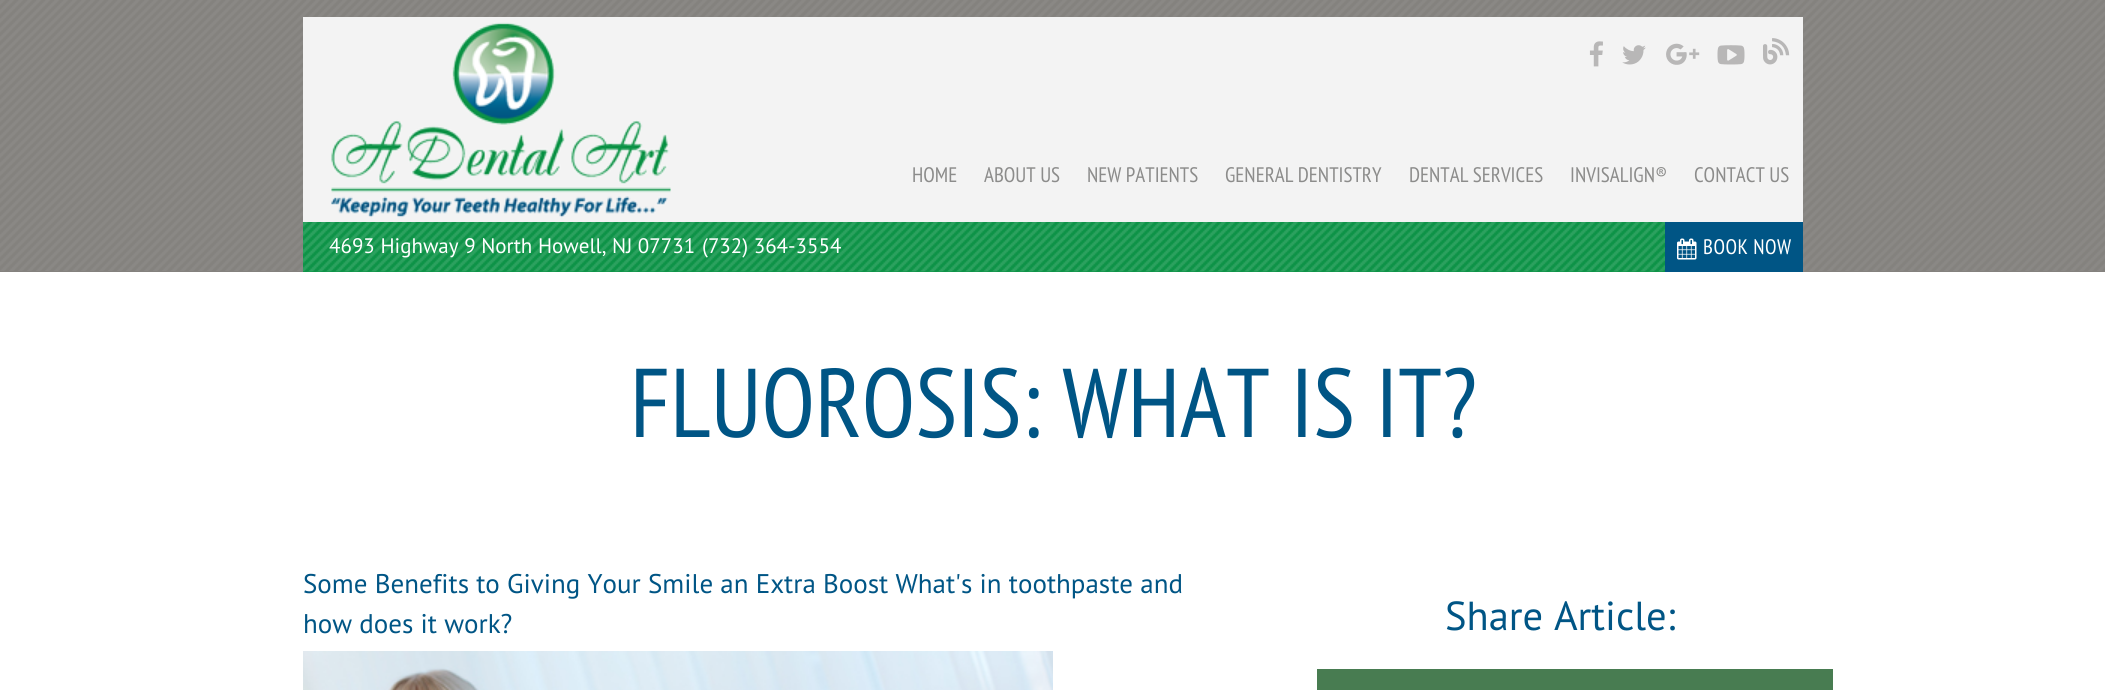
import math
import cairocffi as cairo

surface = cairo.ImageSurface(cairo.FORMAT_RGB24, 2105, 690)
cr = cairo.Context(surface)
options = cairo.FontOptions()
options.set_hint_metrics(cairo.HINT_METRICS_OFF)
options.set_hint_style(cairo.HINT_STYLE_NONE)
cr.set_font_options(options)
cr.set_miter_limit(4)


def use_color(code):
    cr.set_source_rgb(*(v / 255 for v in bytes.fromhex(code[-6:])))


def spaced_text(x, y, s, letter, word):
    cr.move_to(x, y)
    for ch in s:
        cr.show_text(ch)
        cr.rel_move_to(letter + word * (ch == ' '), 0)


def picture(path, x, y, w, h):
    cr.save()
    cr.set_source_surface(cairo.ImageSurface.create_from_png(path), x, y)
    cr.rectangle(x, y, w, h)
    cr.fill()
    cr.restore()


use_color("#ffffff")
cr.paint()
use_color("#84827e")
cr.rectangle(0, 0, 2105, 272)
cr.fill()
picture("img1.png", 0, 0, 2105, 271)
use_color("#f3f3f3")
cr.rectangle(303, 17, 1500, 205)
cr.fill()
picture("img2.png", 331, 22, 340, 196)
picture("img3.png", 1589, 41, 14, 26)
picture("img4.png", 1622, 45, 24, 20)
picture("img5.png", 1666, 43, 34, 22)
picture("img6.png", 1717, 45, 28, 20)
picture("img7.png", 1763, 38, 27, 27)
cr.select_font_face("PT Sans Narrow")
cr.set_font_size(21)
use_color("#8c8c8b")
cr.move_to(912, 182)
cr.show_text("HOME")
cr.move_to(984, 182)
cr.show_text("ABOUT US")
cr.move_to(1087, 182)
cr.show_text("NEW PATIENTS")
cr.move_to(1225, 182)
cr.show_text("GENERAL DENTISTRY")
cr.move_to(1409, 182)
cr.show_text("DENTAL SERVICES")
cr.move_to(1570, 182)
cr.show_text("INVISALIGN®")
cr.move_to(1694, 182)
cr.show_text("CONTACT US")
use_color("#0d9347")
cr.rectangle(303, 222, 1362, 50)
cr.fill()
picture("img8.png", 303, 222, 1362, 50)
cr.select_font_face("PT Sans")
use_color("#ffffff")
cr.move_to(329, 253)
cr.show_text("4693 Highway 9 North Howell, NJ 07731")
cr.move_to(702, 253)
cr.show_text("(732) 364-3554")
use_color("#005585")
cr.rectangle(1665, 222, 138, 50)
cr.fill()
picture("img9.png", 1677, 238, 20, 22)
cr.select_font_face("PT Sans Narrow")
use_color("#ffffff")
spaced_text(1703, 254, "BOOK NOW", 0.5, 0)
cr.set_font_size(97.5)
use_color("#005585")
cr.move_to(630, 437)
cr.show_text("FLUOROSIS: WHAT IS IT?")
cr.select_font_face("PT Sans")
cr.set_font_size(27)
cr.move_to(303, 593)
cr.show_text("Some Benefits to Giving Your Smile an Extra Boost What's in toothpaste and")
cr.move_to(303, 633)
cr.show_text("how does it work?")
picture("img10.png", 303, 651, 750, 39)
cr.set_font_size(40.5)
cr.move_to(1445, 630)
cr.show_text("Share Article:")
use_color("#487c51")
cr.rectangle(1317, 669, 516, 21)
cr.fill()
surface.write_to_png("result.png")
